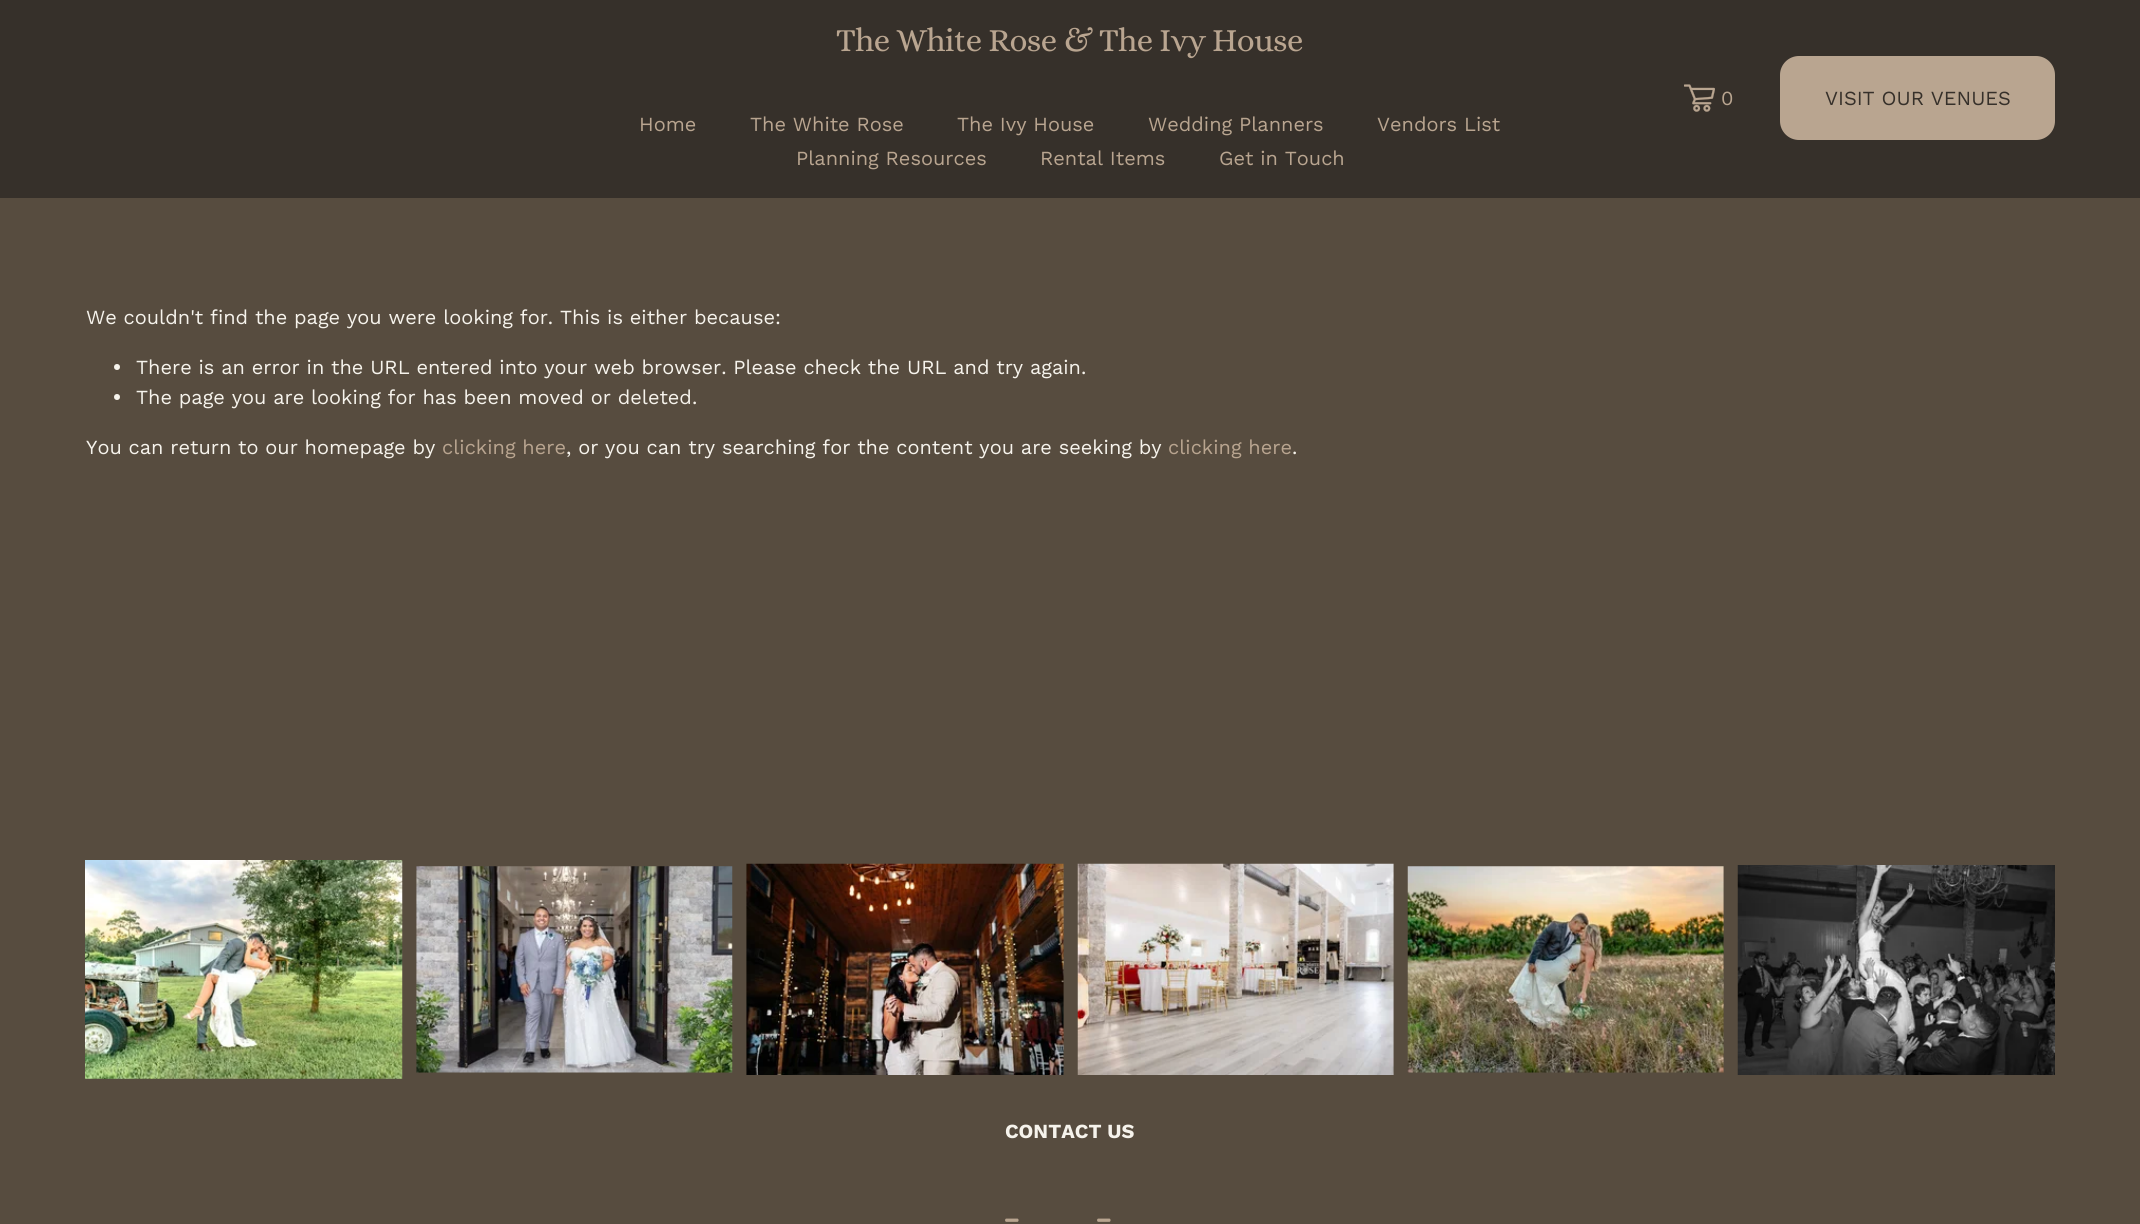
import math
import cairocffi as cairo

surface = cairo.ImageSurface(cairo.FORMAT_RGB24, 2140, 1224)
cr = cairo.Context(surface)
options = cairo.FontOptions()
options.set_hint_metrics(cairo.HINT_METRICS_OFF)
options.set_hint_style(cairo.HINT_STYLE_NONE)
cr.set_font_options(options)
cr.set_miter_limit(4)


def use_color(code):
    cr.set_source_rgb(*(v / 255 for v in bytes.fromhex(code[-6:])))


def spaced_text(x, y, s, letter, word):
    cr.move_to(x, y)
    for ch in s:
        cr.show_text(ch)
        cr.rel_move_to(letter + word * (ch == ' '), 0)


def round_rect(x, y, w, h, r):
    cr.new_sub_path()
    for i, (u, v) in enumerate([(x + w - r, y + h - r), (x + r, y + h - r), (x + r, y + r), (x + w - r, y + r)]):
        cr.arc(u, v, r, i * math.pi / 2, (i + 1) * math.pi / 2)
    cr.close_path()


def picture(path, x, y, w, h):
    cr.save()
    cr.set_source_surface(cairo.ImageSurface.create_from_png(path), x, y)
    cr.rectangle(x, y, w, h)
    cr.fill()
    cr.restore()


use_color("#574c3f")
cr.paint()
use_color("#36302a")
cr.rectangle(0, 0, 2140, 198)
cr.fill()
cr.select_font_face("Alice")
cr.set_font_size(32.8)
use_color("#b9a590")
spaced_text(836, 51, "The White Rose & The Ivy House", -0.65, 0)
cr.select_font_face("Work Sans")
cr.set_font_size(20)
cr.move_to(639, 131)
cr.show_text("Home")
cr.move_to(750, 131)
cr.show_text("The White Rose")
cr.move_to(957, 131)
cr.show_text("The Ivy House")
cr.move_to(1148, 131)
cr.show_text("Wedding Planners")
cr.move_to(1377, 131)
cr.show_text("Vendors List")
cr.move_to(796, 165)
cr.show_text("Planning Resources")
cr.move_to(1040, 165)
cr.show_text("Rental Items")
cr.move_to(1219, 165)
cr.show_text("Get in Touch")
picture("img1.png", 1684, 84, 31, 28)
cr.move_to(1721, 105)
cr.show_text("0")
round_rect(1780, 56, 275, 84, 19)
cr.fill()
use_color("#36302a")
cr.move_to(1825, 105)
cr.show_text("VISIT OUR VENUES")
use_color("#f6f3ec")
cr.move_to(86, 324)
cr.show_text("We couldn't find the page you were looking for. This is either because:")
cr.new_path()
cr.arc(117, 367, 3, 0, 2 * math.pi)
cr.fill()
cr.move_to(136, 374)
cr.show_text("There is an error in the URL entered into your web browser. Please check the URL and try again.")
cr.new_path()
cr.arc(117, 397, 3, 0, 2 * math.pi)
cr.fill()
cr.move_to(136, 404)
cr.show_text("The page you are looking for has been moved or deleted.")
cr.move_to(86, 454)
cr.show_text("You can return to our homepage by")
use_color("#b9a590")
cr.move_to(442, 454)
cr.show_text("clicking here")
use_color("#f6f3ec")
cr.move_to(566, 454)
cr.show_text(", or you can try searching for the content you are seeking by")
use_color("#b9a590")
cr.move_to(1168, 454)
cr.show_text("clicking here")
use_color("#f6f3ec")
cr.move_to(1292, 454)
cr.show_text(".")
picture("img2.png", 85, 860, 318, 219)
picture("img3.png", 416, 866, 317, 207)
picture("img4.png", 746, 863, 318, 212)
picture("img5.png", 1077, 863, 317, 212)
picture("img6.png", 1407, 866, 317, 207)
picture("img7.png", 1737, 865, 318, 210)
cr.select_font_face("Work Sans", cairo.FONT_SLANT_NORMAL, cairo.FONT_WEIGHT_BOLD)
cr.move_to(1005, 1138)
cr.show_text("CONTACT US")
cr.select_font_face("Alice")
cr.set_font_size(51)
use_color("#b9a590")
spaced_text(1002, 1232, "-", -1, 0)
spaced_text(1094, 1232, "-", -1, 0)
surface.write_to_png("result.png")
